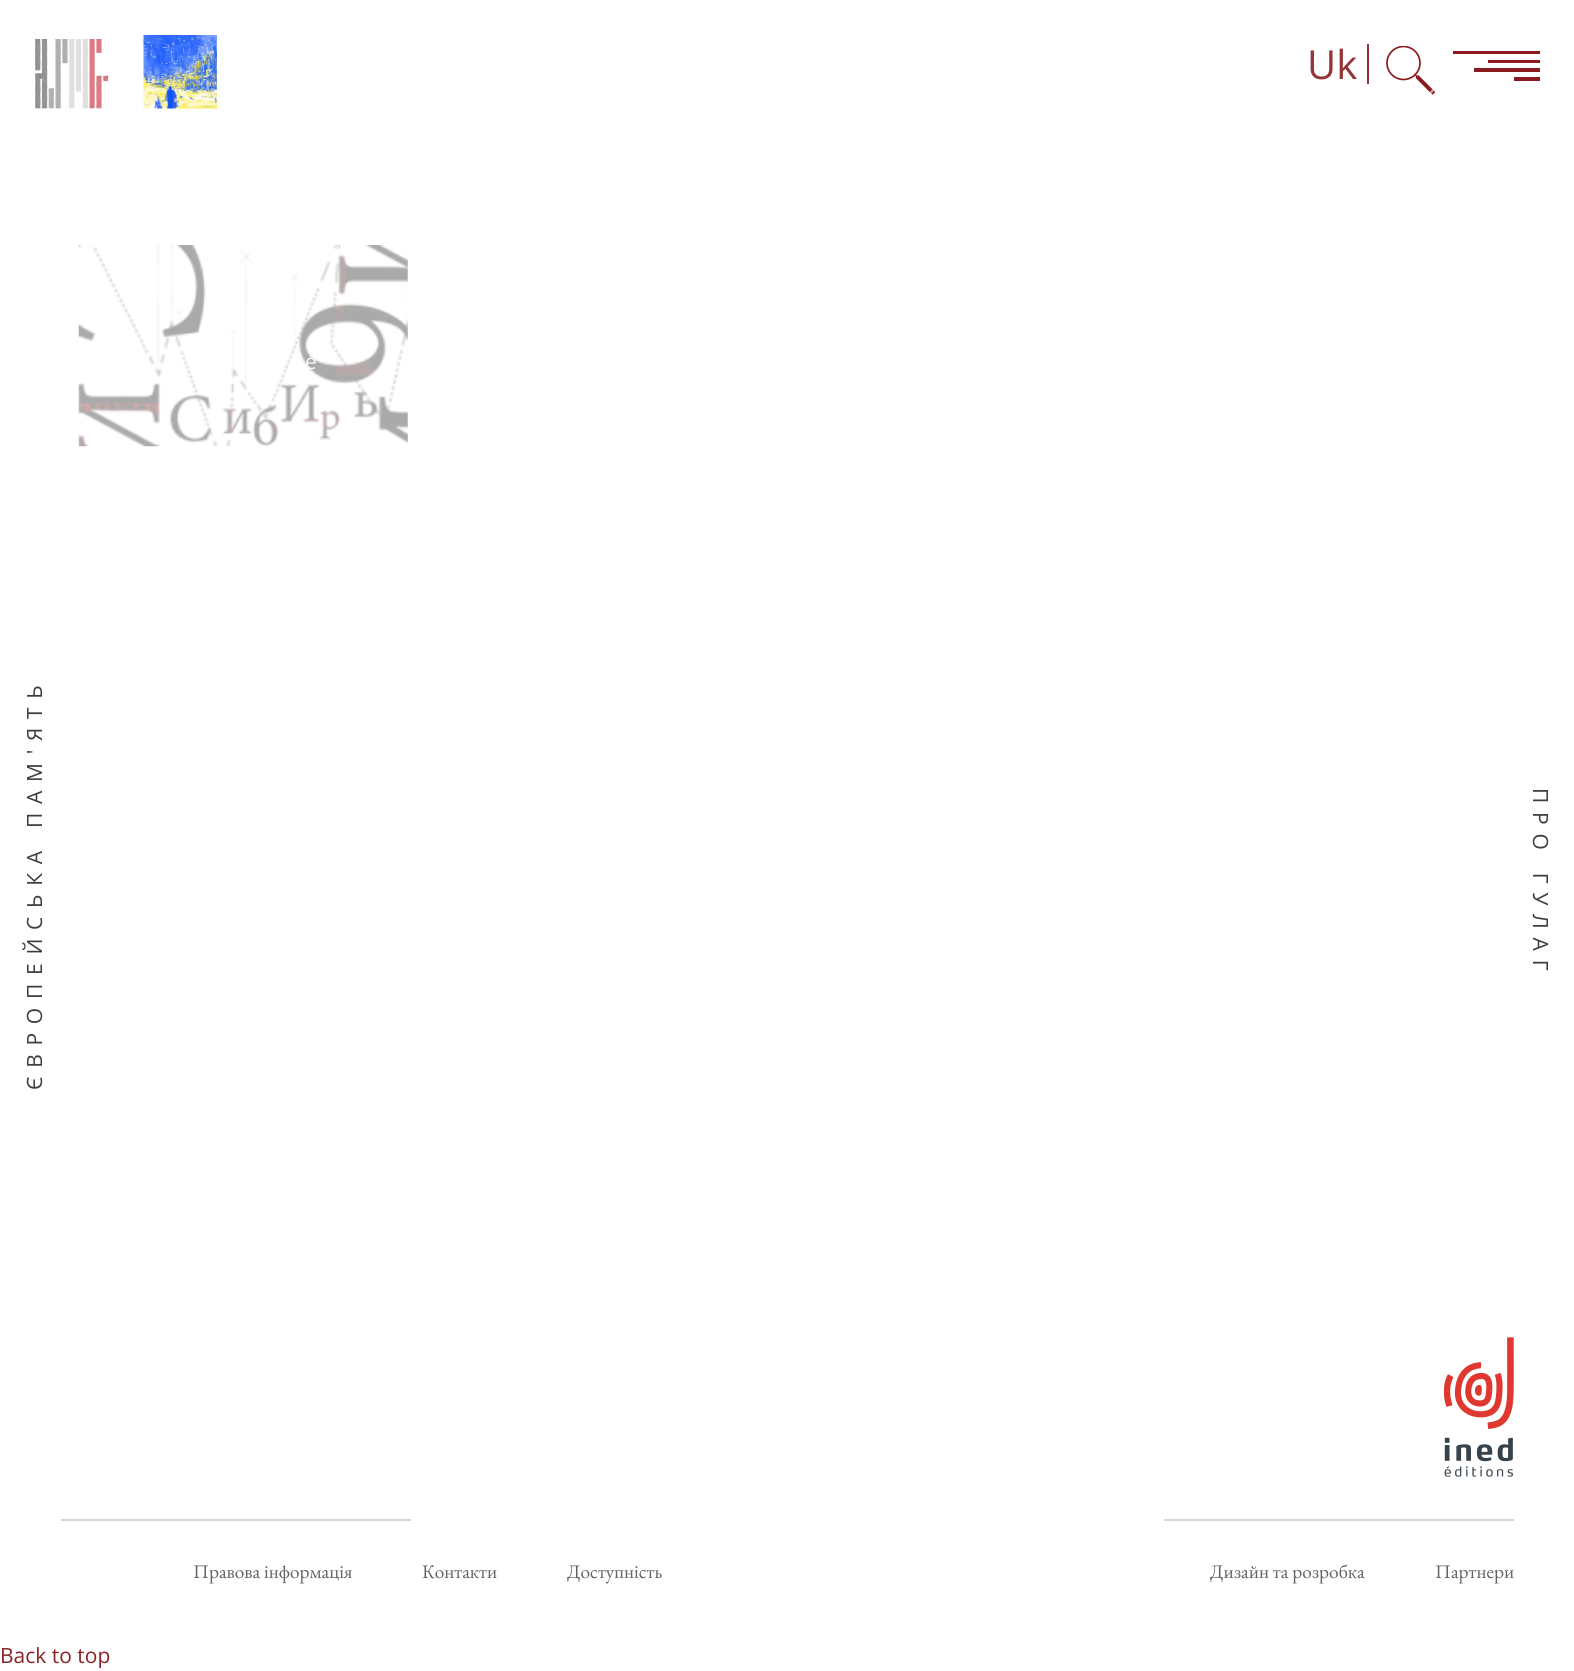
import math
import cairocffi as cairo

surface = cairo.ImageSurface(cairo.FORMAT_RGB24, 1574, 1671)
cr = cairo.Context(surface)
options = cairo.FontOptions()
options.set_hint_metrics(cairo.HINT_METRICS_OFF)
options.set_hint_style(cairo.HINT_STYLE_NONE)
cr.set_font_options(options)
cr.set_miter_limit(4)


def use_color(code):
    cr.set_source_rgb(*(v / 255 for v in bytes.fromhex(code[-6:])))


def spaced_text(x, y, s, letter, word):
    cr.move_to(x, y)
    for ch in s:
        cr.show_text(ch)
        cr.rel_move_to(letter + word * (ch == ' '), 0)


def picture(path, x, y, w, h):
    cr.save()
    cr.set_source_surface(cairo.ImageSurface.create_from_png(path), x, y)
    cr.rectangle(x, y, w, h)
    cr.fill()
    cr.restore()


use_color("#ffffff")
cr.paint()
picture("img1.png", 35, 39, 74, 70)
picture("img2.png", 143, 35, 74, 74)
cr.select_font_face("Open Sans")
cr.set_font_size(40)
use_color("#943437")
cr.move_to(1307, 79)
cr.show_text("Uk")
cr.rectangle(1367, 44, 2, 40)
cr.fill()
picture("img3.png", 1386, 46, 49, 49)
use_color("#8b1b1e")
cr.rectangle(1453, 51, 87, 3)
cr.fill()
cr.rectangle(1488, 60, 52, 3)
cr.fill()
cr.rectangle(1474, 68, 66, 4)
cr.fill()
cr.rectangle(1514, 77, 26, 4)
cr.fill()
picture("img4.png", 78, 245, 330, 202)
cr.set_font_size(21)
use_color("#f8f8f8")
cr.move_to(305, 369)
cr.show_text("é")
use_color("#3d3d3d")
cr.save()
cr.translate(42, 1090)
cr.rotate(-90 * math.pi / 180)
spaced_text(0, 0, "ЄВРОПЕЙСЬКА ПАМ'ЯТЬ", 8.75, 0)
cr.restore()
cr.save()
cr.translate(1533, 788)
cr.rotate(90 * math.pi / 180)
spaced_text(0, 0, "ПРО ГУЛАГ", 8.75, 0)
cr.restore()
picture("img5.png", 1444, 1337, 70, 140)
use_color("#d5d5d5")
cr.rectangle(61, 1519, 350, 2)
cr.fill()
cr.rectangle(1164, 1519, 350, 2)
cr.fill()
cr.select_font_face("EB Garamond")
cr.set_font_size(19.25)
use_color("#626262")
cr.move_to(193, 1578)
cr.show_text("Правова інформація")
cr.move_to(422, 1578)
cr.show_text("Контакти")
cr.move_to(567, 1578)
cr.show_text("Доступність")
cr.move_to(1210, 1578)
cr.show_text("Дизайн та розробка")
cr.move_to(1435, 1578)
cr.show_text("Партнери")
cr.select_font_face("Open Sans")
cr.set_font_size(21)
use_color("#882427")
cr.move_to(0, 1663)
cr.show_text("Back to top")
surface.write_to_png("result.png")
